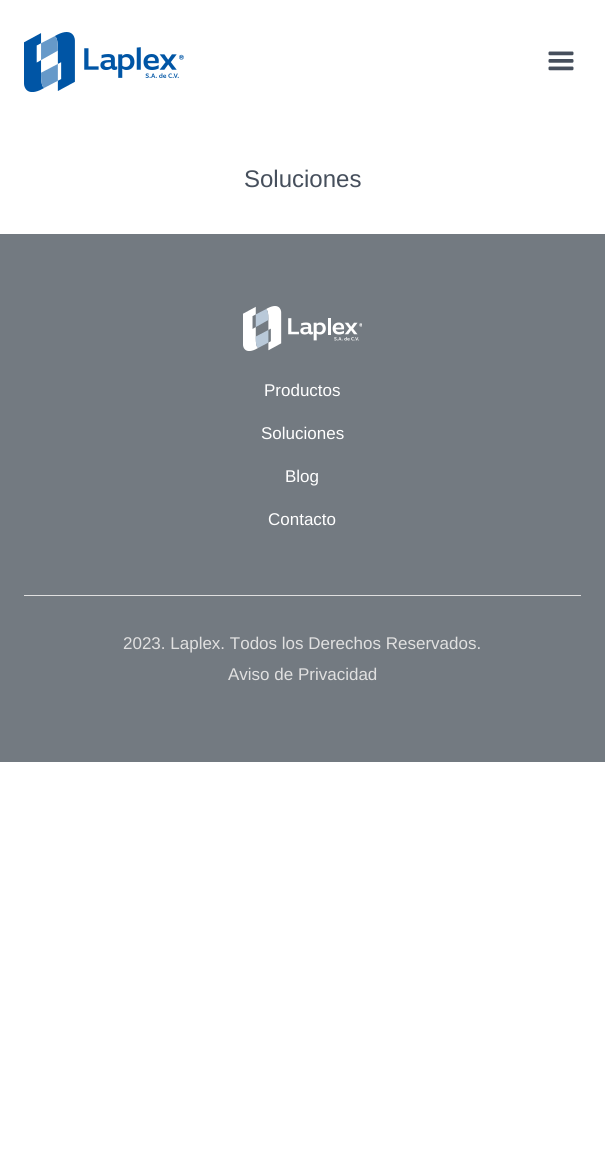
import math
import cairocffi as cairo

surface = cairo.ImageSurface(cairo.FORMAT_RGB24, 605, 1158)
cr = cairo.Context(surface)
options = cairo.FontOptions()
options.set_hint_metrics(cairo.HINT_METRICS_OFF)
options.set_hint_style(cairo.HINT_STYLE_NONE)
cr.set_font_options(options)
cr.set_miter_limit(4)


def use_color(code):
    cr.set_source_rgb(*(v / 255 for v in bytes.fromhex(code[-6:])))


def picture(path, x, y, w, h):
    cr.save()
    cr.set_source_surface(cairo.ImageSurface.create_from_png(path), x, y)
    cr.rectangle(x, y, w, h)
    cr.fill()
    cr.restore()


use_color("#ffffff")
cr.paint()
picture("img1.png", 24, 32, 160, 60)
picture("img2.png", 548, 51, 26, 20)
cr.select_font_face("Liberation Sans")
cr.set_font_size(24)
use_color("#464f5c")
cr.move_to(244, 187)
cr.show_text("Soluciones")
use_color("#737a81")
cr.rectangle(0, 234, 605, 528)
cr.fill()
picture("img3.png", 243, 306, 119, 45)
cr.set_font_size(17)
use_color("#ffffff")
cr.move_to(264, 396)
cr.show_text("Productos")
cr.move_to(261, 439)
cr.show_text("Soluciones")
cr.move_to(285, 482)
cr.show_text("Blog")
cr.move_to(268, 525)
cr.show_text("Contacto")
use_color("#e0e0e0")
cr.rectangle(24, 595, 557, 1)
cr.fill()
cr.move_to(123, 649)
cr.show_text("2023. Laplex. Todos los Derechos Reservados.")
cr.move_to(228, 680)
cr.show_text("Aviso de Privacidad")
surface.write_to_png("result.png")
